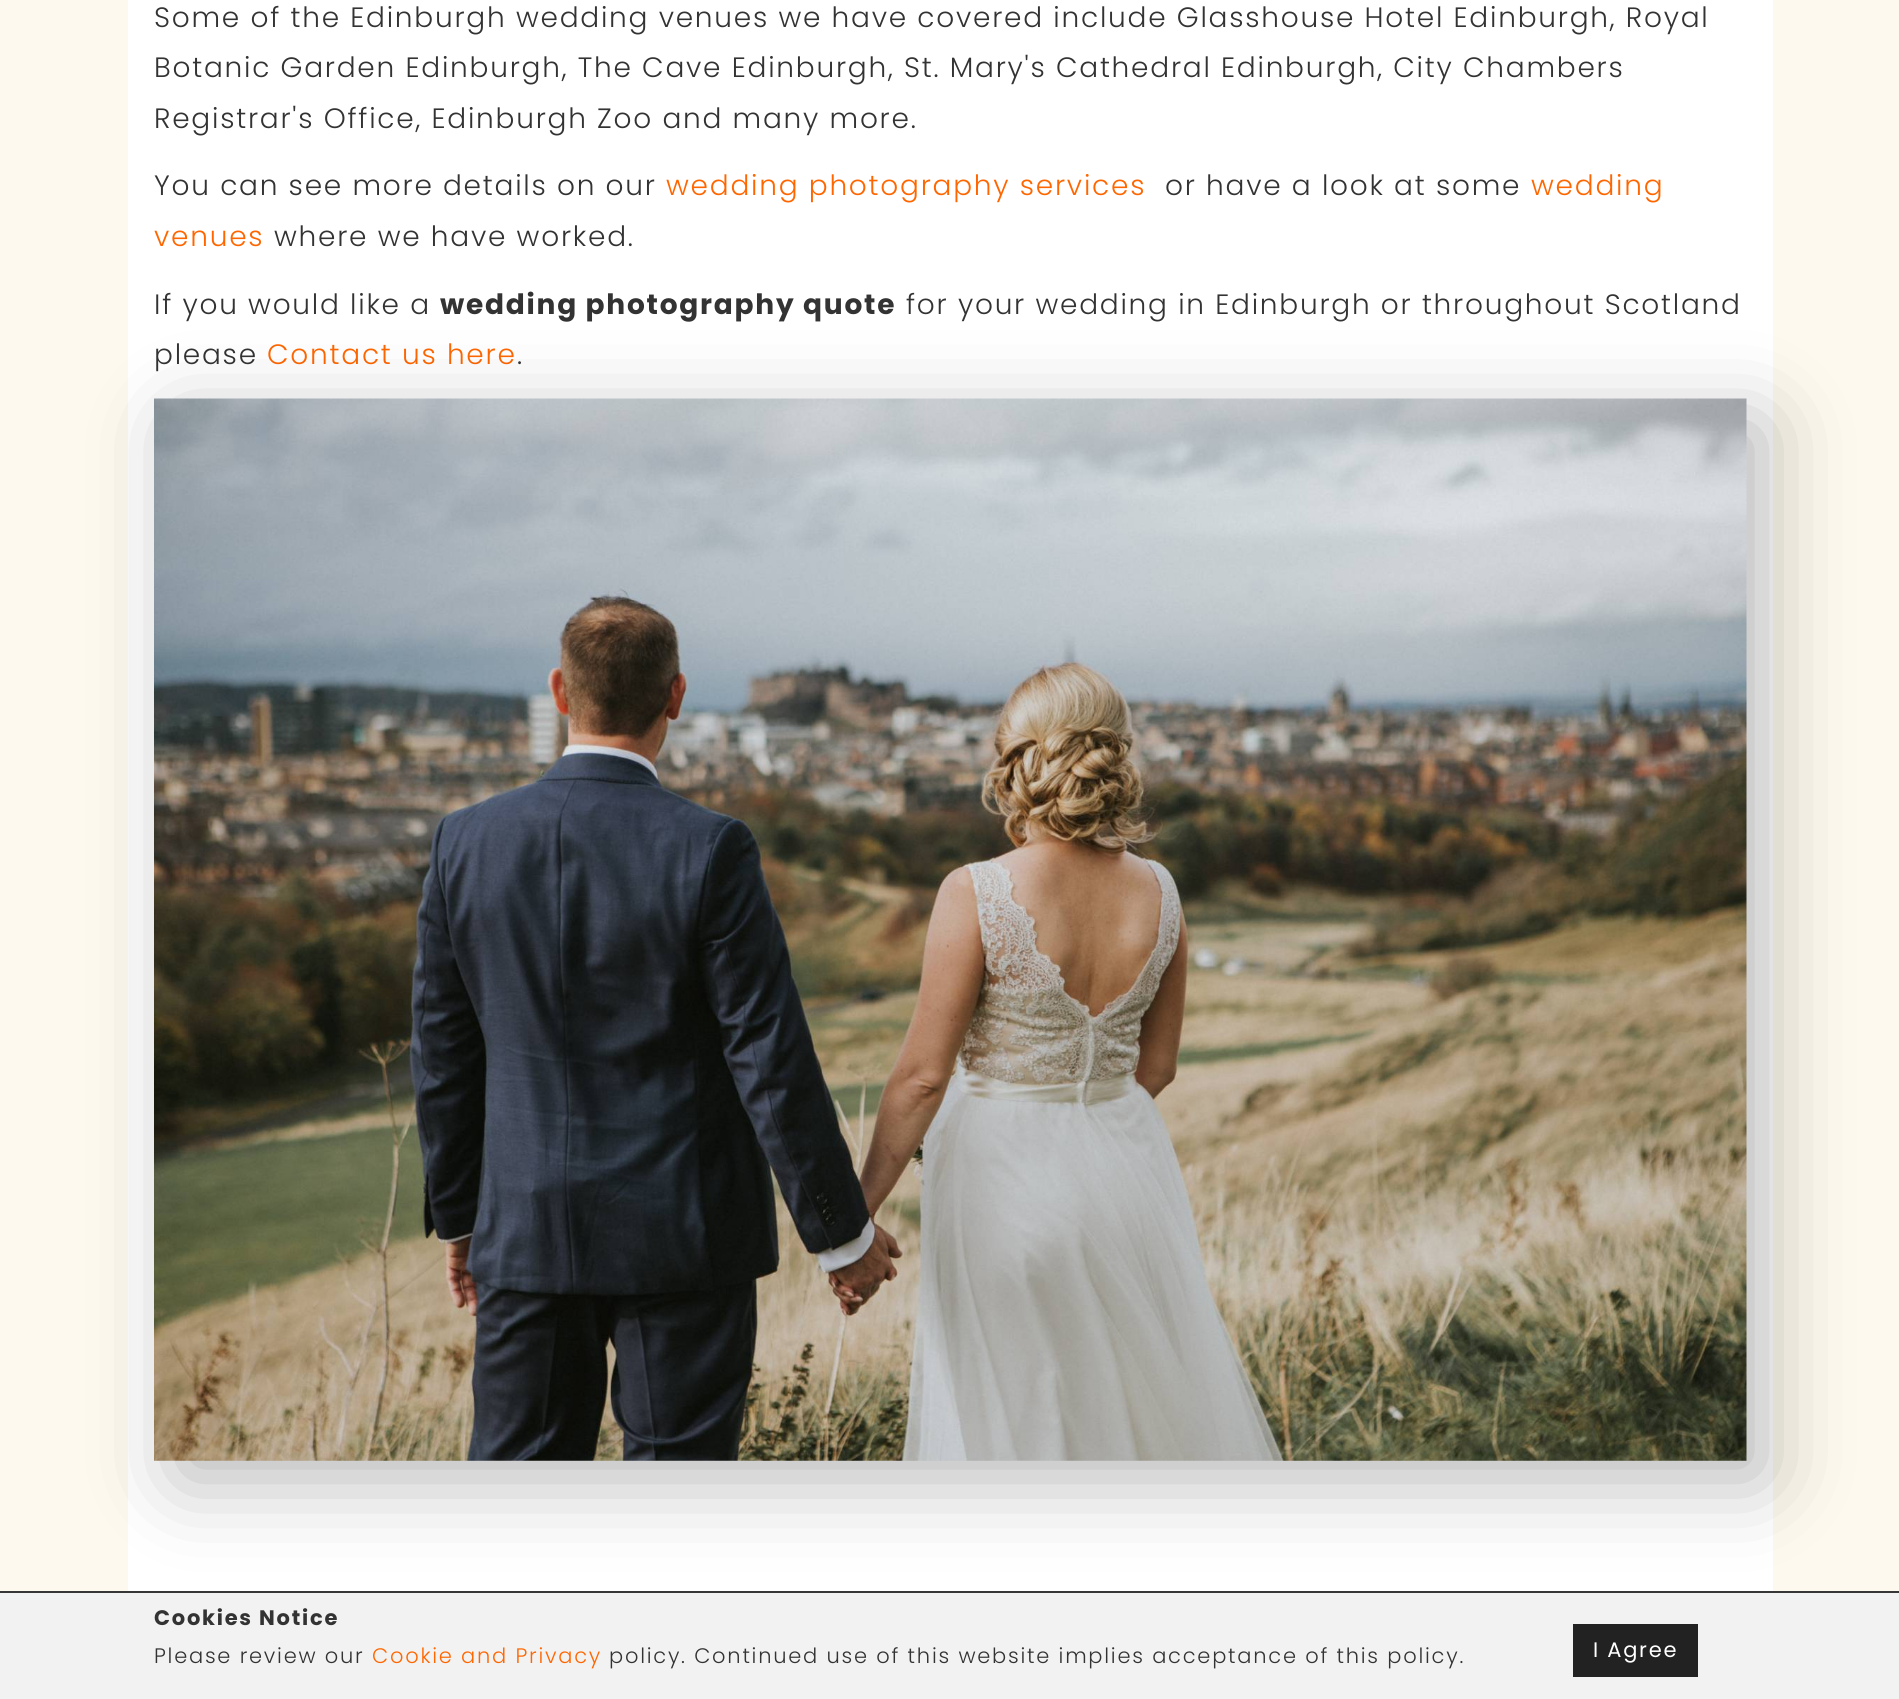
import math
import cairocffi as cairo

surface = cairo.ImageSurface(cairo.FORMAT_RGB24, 1899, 1699)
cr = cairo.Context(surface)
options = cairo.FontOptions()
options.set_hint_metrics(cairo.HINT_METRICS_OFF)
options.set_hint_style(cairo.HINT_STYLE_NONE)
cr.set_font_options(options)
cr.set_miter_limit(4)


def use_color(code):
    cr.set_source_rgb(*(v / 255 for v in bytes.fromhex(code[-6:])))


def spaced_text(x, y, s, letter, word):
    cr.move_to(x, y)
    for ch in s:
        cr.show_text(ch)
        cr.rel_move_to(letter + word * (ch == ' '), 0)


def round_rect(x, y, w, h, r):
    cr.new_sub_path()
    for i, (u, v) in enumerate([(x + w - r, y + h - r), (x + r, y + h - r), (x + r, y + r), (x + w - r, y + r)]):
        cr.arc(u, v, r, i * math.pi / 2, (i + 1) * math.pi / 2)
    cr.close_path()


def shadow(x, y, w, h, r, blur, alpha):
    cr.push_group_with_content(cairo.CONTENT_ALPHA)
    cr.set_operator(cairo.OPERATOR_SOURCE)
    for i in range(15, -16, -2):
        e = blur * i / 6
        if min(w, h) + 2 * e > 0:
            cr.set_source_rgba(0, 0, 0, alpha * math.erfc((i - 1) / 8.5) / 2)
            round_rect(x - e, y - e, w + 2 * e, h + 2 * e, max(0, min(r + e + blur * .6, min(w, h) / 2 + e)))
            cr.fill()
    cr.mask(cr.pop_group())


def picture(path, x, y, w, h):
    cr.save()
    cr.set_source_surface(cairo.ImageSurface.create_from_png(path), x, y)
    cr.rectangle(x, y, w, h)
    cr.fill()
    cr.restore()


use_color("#fdf9ee")
cr.paint()
use_color("#ffffff")
cr.rectangle(128, 0, 1645, 1591)
cr.fill()
cr.select_font_face("Poppins Light")
cr.set_font_size(28)
use_color("#333333")
spaced_text(154, 27, "Some of the Edinburgh wedding venues we have covered include Glasshouse Hotel Edinburgh, Royal", 1.75, 0)
spaced_text(154, 77, "Botanic Garden Edinburgh, The Cave Edinburgh, St. Mary's Cathedral Edinburgh, City Chambers", 1.75, 0)
spaced_text(154, 128, "Registrar's Office, Edinburgh Zoo and many more.", 1.75, 0)
spaced_text(154, 195, "You can see more details on our", 1.75, 0)
use_color("#ff6600")
spaced_text(666, 195, "wedding photography services", 1.75, 0)
use_color("#333333")
spaced_text(1165, 195, "or have a look at some", 1.75, 0)
use_color("#ff6600")
spaced_text(1531, 195, "wedding", 1.75, 0)
spaced_text(154, 246, "venues", 1.75, 0)
use_color("#333333")
spaced_text(274, 246, "where we have worked.", 1.75, 0)
spaced_text(154, 314, "If you would like a", 1.75, 0)
cr.select_font_face("Poppins", cairo.FONT_SLANT_NORMAL, cairo.FONT_WEIGHT_BOLD)
spaced_text(440, 314, "wedding photography quote", 1.75, 0)
cr.select_font_face("Poppins Light")
spaced_text(906, 314, "for your wedding in Edinburgh or throughout Scotland", 1.75, 0)
spaced_text(154, 364, "please", 1.75, 0)
use_color("#ff6600")
spaced_text(267, 364, "Contact us here", 1.75, 0)
use_color("#333333")
spaced_text(517, 364, ".", 1.75, 0)
use_color("#000000")
shadow(180, 425, 1582, 1052, 0, 44, 0.3)
picture("img1.png", 154, 398, 1593, 1063)
use_color("#f2f2f2")
cr.rectangle(0, 1593, 1899, 106)
cr.fill()
use_color("#373737")
cr.rectangle(0, 1591, 1899, 2)
cr.fill()
cr.select_font_face("Poppins", cairo.FONT_SLANT_NORMAL, cairo.FONT_WEIGHT_BOLD)
cr.set_font_size(21)
use_color("#333333")
spaced_text(154, 1625, "Cookies Notice", 1.75, 0)
cr.select_font_face("Poppins Light")
spaced_text(154, 1663, "Please review our", 1.75, 0)
use_color("#ff6600")
spaced_text(372, 1663, "Cookie and Privacy", 1.75, 0)
use_color("#333333")
spaced_text(609, 1663, "policy. Continued use of this website implies acceptance of this policy.", 1.75, 0)
use_color("#222222")
cr.rectangle(1573, 1624, 125, 53)
cr.fill()
cr.select_font_face("Poppins")
use_color("#ffffff")
spaced_text(1593, 1657, "I Agree", 1.75, 0)
surface.write_to_png("result.png")
